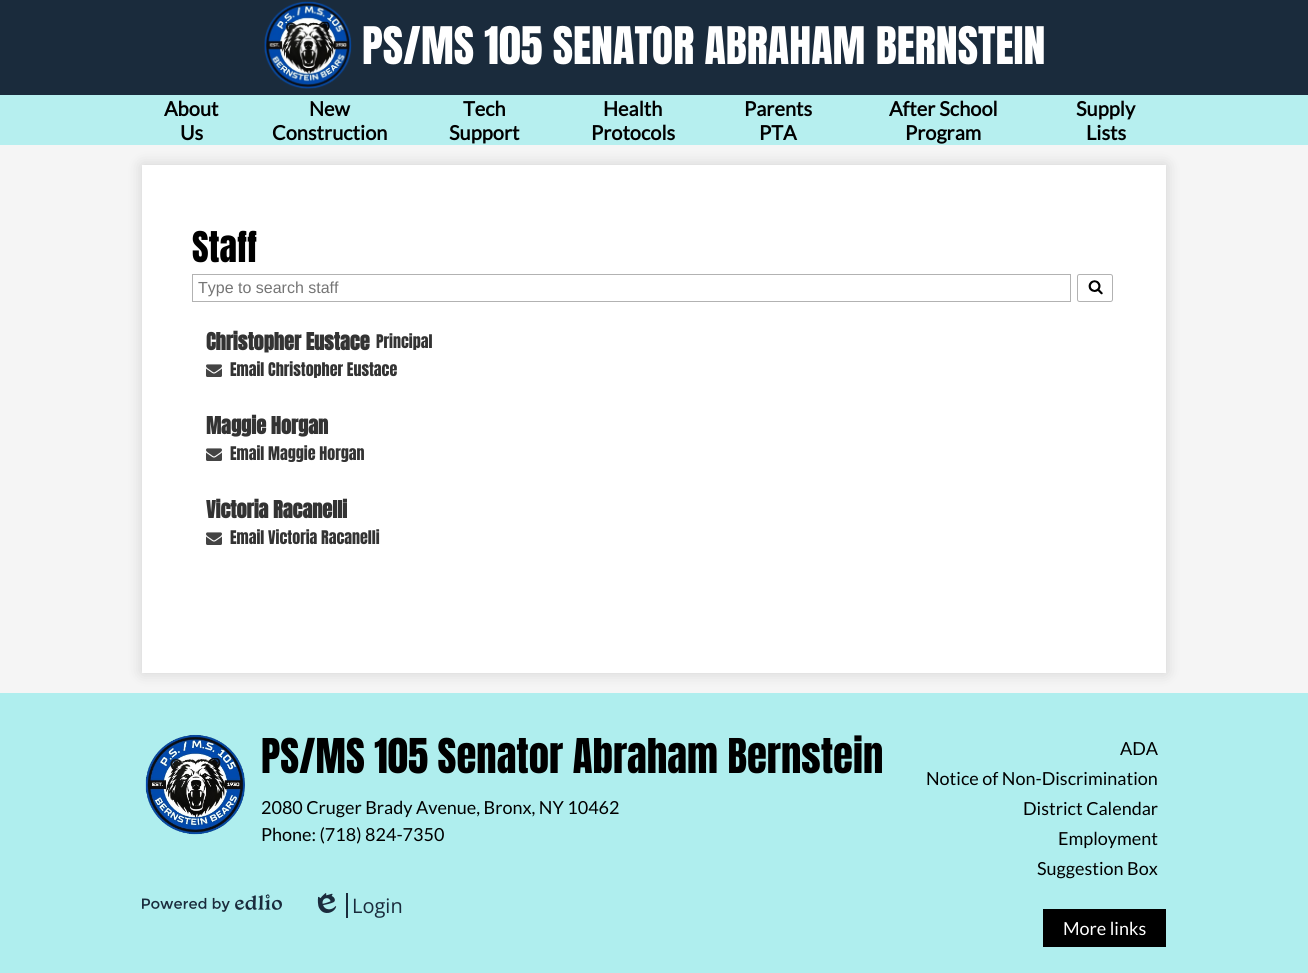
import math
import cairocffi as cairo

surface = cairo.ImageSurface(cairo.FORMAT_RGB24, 1308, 973)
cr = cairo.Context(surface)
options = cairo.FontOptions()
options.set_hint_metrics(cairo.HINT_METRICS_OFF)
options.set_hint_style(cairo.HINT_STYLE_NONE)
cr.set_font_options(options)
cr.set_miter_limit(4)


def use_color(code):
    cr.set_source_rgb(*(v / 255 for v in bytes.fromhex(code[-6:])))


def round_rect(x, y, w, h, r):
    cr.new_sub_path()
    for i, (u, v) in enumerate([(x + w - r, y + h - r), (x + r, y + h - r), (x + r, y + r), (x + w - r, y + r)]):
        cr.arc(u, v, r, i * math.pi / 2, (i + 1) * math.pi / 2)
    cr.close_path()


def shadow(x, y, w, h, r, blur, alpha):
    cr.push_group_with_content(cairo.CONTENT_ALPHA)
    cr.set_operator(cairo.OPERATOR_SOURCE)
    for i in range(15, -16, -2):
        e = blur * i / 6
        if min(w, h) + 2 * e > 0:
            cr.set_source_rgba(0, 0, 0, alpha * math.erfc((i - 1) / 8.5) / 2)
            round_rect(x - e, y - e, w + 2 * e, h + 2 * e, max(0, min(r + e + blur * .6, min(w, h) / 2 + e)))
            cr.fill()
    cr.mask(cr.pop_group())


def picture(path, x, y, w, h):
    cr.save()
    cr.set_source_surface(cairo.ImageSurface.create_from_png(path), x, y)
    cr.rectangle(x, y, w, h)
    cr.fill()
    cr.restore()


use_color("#f5f5f5")
cr.paint()
use_color("#1a2b3c")
cr.rectangle(0, 0, 1308, 95)
cr.fill()
picture("img1.png", 264, 1, 88, 88)
cr.select_font_face("Anton")
cr.set_font_size(44)
use_color("#ffffff")
cr.move_to(362, 64)
cr.show_text("PS/MS 105 SENATOR ABRAHAM BERNSTEIN")
use_color("#afeeee")
cr.rectangle(0, 693, 1308, 280)
cr.fill()
use_color("#000000")
shadow(142, 165, 1024, 508, 0, 7.5, 0.15)
use_color("#b6efef")
cr.rectangle(0, 95, 1308, 50)
cr.fill()
cr.select_font_face("Lato", cairo.FONT_SLANT_NORMAL, cairo.FONT_WEIGHT_BOLD)
cr.set_font_size(20)
use_color("#000000")
cr.move_to(164, 116)
cr.show_text("About")
cr.move_to(180, 140)
cr.show_text("Us")
cr.move_to(309, 116)
cr.show_text("New")
cr.move_to(272, 140)
cr.show_text("Construction")
cr.move_to(463, 116)
cr.show_text("Tech")
cr.move_to(449, 140)
cr.show_text("Support")
cr.move_to(603, 116)
cr.show_text("Health")
cr.move_to(591, 140)
cr.show_text("Protocols")
cr.move_to(744, 116)
cr.show_text("Parents")
cr.move_to(759, 140)
cr.show_text("PTA")
cr.move_to(889, 116)
cr.show_text("After School")
cr.move_to(905, 140)
cr.show_text("Program")
cr.move_to(1076, 116)
cr.show_text("Supply")
cr.move_to(1086, 140)
cr.show_text("Lists")
use_color("#ffffff")
cr.rectangle(142, 165, 1024, 508)
cr.fill()
cr.select_font_face("Anton")
cr.set_font_size(36)
use_color("#000000")
cr.move_to(192, 262)
cr.show_text("Staff")
cr.rectangle(192.5, 274.5, 878, 27)
use_color("#b2b2b2")
cr.set_line_width(1)
cr.stroke()
cr.select_font_face("Liberation Sans")
cr.set_font_size(16)
use_color("#757575")
cr.move_to(198, 293)
cr.show_text("Type to search staff")
round_rect(1077.5, 274.5, 35, 27, 2)
use_color("#b2b2b2")
cr.stroke()
picture("img2.png", 1088, 280, 15, 15)
cr.select_font_face("Anton", cairo.FONT_SLANT_NORMAL, cairo.FONT_WEIGHT_BOLD)
cr.set_font_size(20.25)
use_color("#333333")
cr.move_to(206, 350)
cr.show_text("Christopher Eustace")
cr.select_font_face("Anton")
cr.set_font_size(16)
cr.move_to(376, 348)
cr.show_text("Principal")
picture("img3.png", 206, 364, 16, 13)
cr.move_to(230, 376)
cr.show_text("Email Christopher Eustace")
cr.select_font_face("Anton", cairo.FONT_SLANT_NORMAL, cairo.FONT_WEIGHT_BOLD)
cr.set_font_size(20.25)
cr.move_to(206, 434)
cr.show_text("Maggie Horgan")
picture("img3.png", 206, 448, 16, 13)
cr.select_font_face("Anton")
cr.set_font_size(16)
cr.move_to(230, 460)
cr.show_text("Email Maggie Horgan")
cr.select_font_face("Anton", cairo.FONT_SLANT_NORMAL, cairo.FONT_WEIGHT_BOLD)
cr.set_font_size(20.25)
cr.move_to(206, 518)
cr.show_text("Victoria Racanelli")
picture("img3.png", 206, 532, 16, 13)
cr.select_font_face("Anton")
cr.set_font_size(16)
cr.move_to(230, 544)
cr.show_text("Email Victoria Racanelli")
picture("img4.png", 145, 734, 100, 101)
cr.set_font_size(40.75)
use_color("#000000")
cr.move_to(261, 773)
cr.show_text("PS/MS 105 Senator Abraham Bernstein")
cr.select_font_face("Lato")
cr.set_font_size(18)
cr.move_to(261, 814)
cr.show_text("2080 Cruger Brady Avenue, Bronx, NY 10462")
cr.move_to(261, 841)
cr.show_text("Phone: (718) 824-7350")
cr.move_to(1120, 755)
cr.show_text("ADA")
cr.move_to(926, 785)
cr.show_text("Notice of Non-Discrimination")
cr.move_to(1023, 815)
cr.show_text("District Calendar")
cr.move_to(1058, 845)
cr.show_text("Employment")
cr.move_to(1037, 875)
cr.show_text("Suggestion Box")
cr.rectangle(1043, 909, 123, 38)
cr.fill()
use_color("#ffffff")
cr.move_to(1063, 935)
cr.show_text("More links")
picture("img5.png", 142, 894, 140, 18)
use_color("#1a2b3c")
cr.rectangle(346, 893, 2, 25)
cr.fill()
picture("img6.png", 317, 893, 20, 20)
cr.select_font_face("Open Sans")
cr.set_font_size(20)
cr.move_to(352, 913)
cr.show_text("Login")
surface.write_to_png("result.png")
